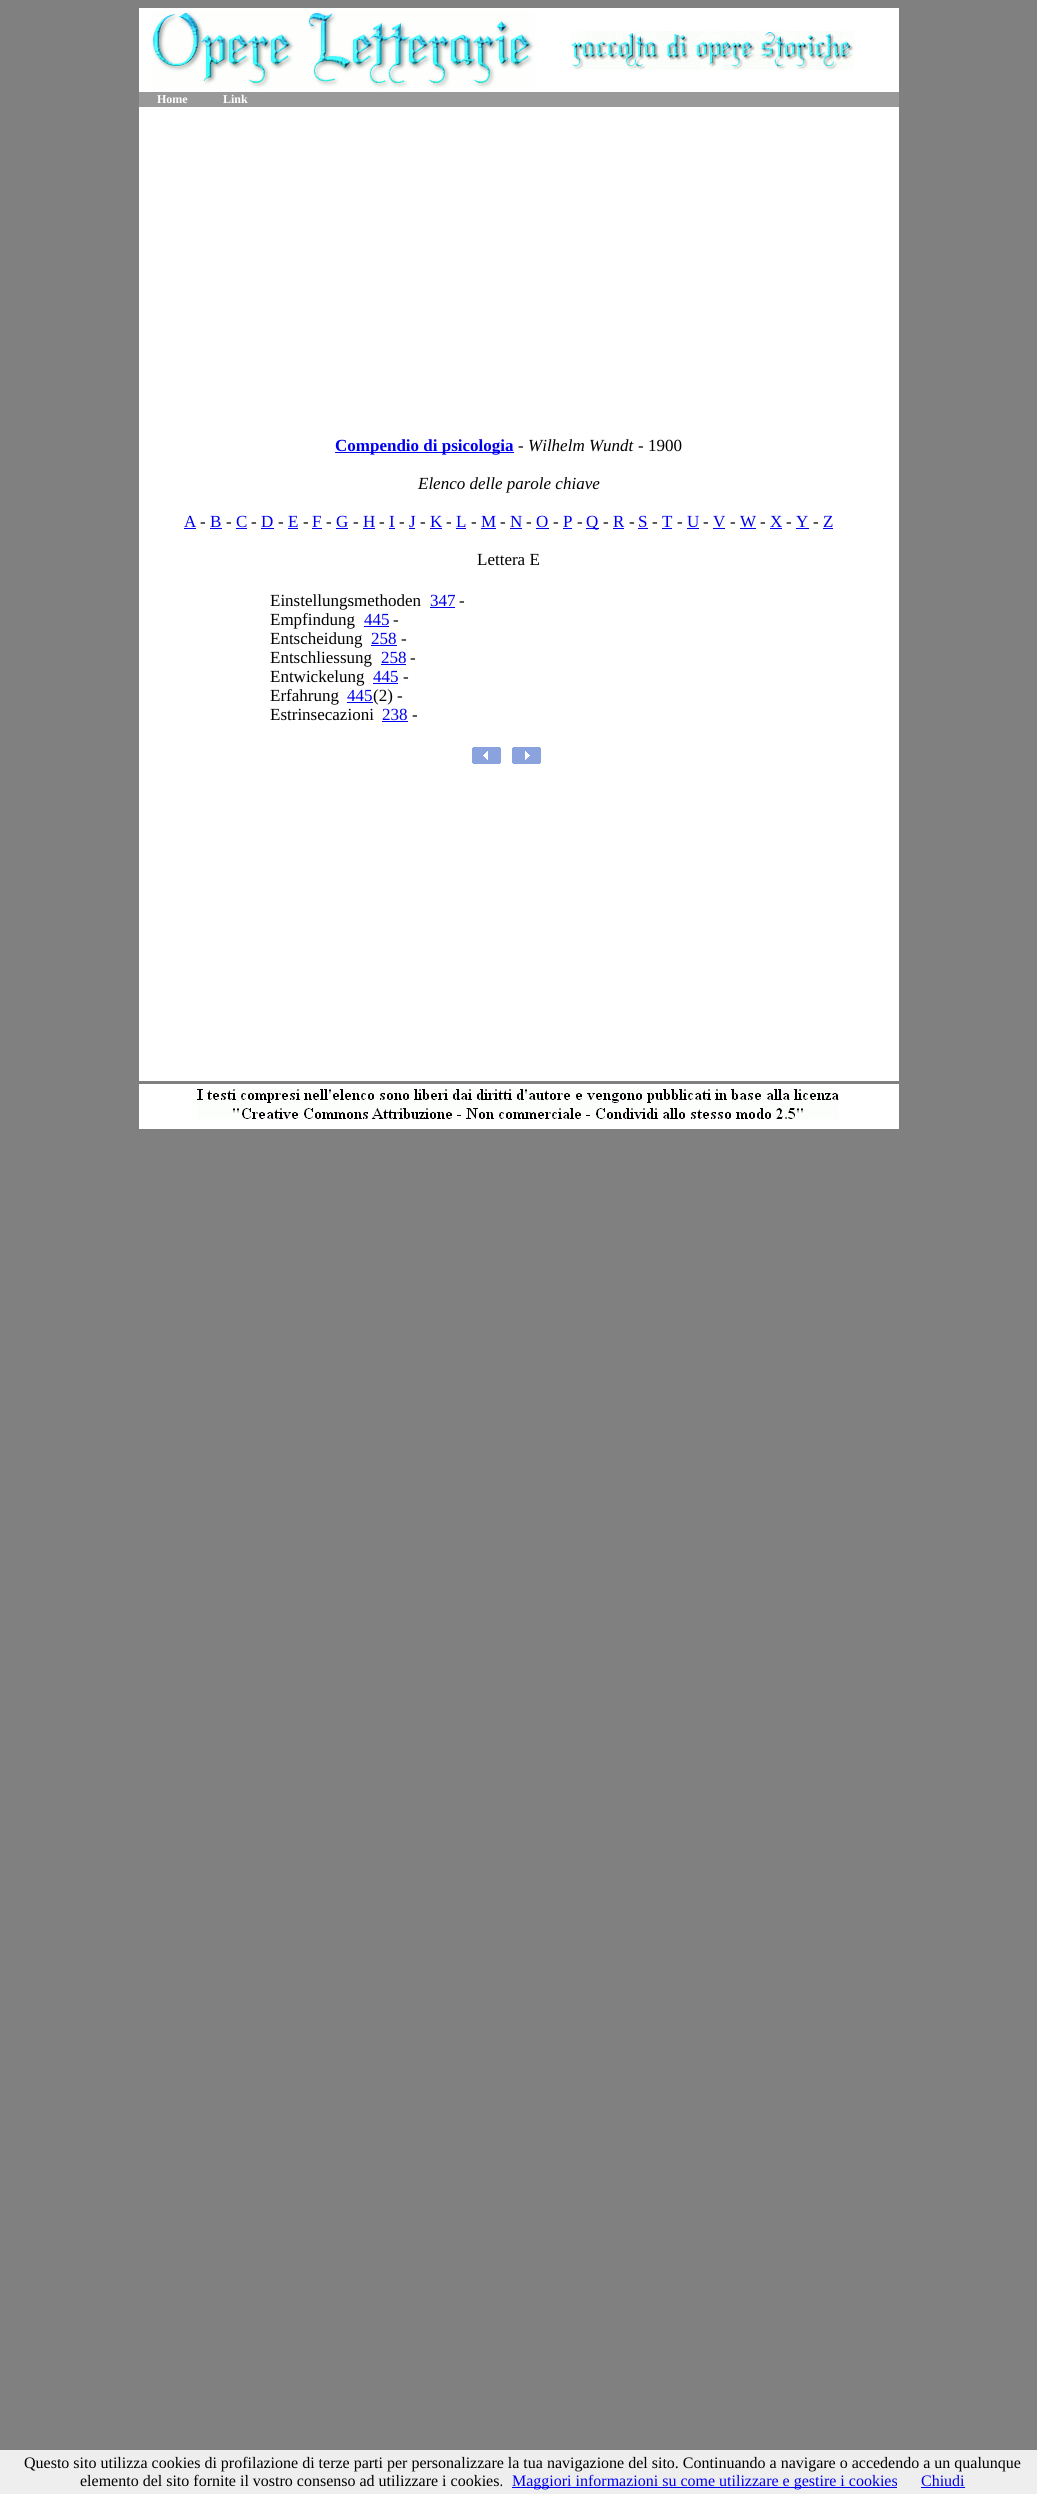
import math
import cairocffi as cairo

surface = cairo.ImageSurface(cairo.FORMAT_RGB24, 1037, 2494)
cr = cairo.Context(surface)
options = cairo.FontOptions()
options.set_hint_metrics(cairo.HINT_METRICS_OFF)
options.set_hint_style(cairo.HINT_STYLE_NONE)
cr.set_font_options(options)
cr.set_miter_limit(4)


def use_color(code):
    cr.set_source_rgb(*(v / 255 for v in bytes.fromhex(code[-6:])))


def picture(path, x, y, w, h):
    cr.save()
    cr.set_source_surface(cairo.ImageSurface.create_from_png(path), x, y)
    cr.rectangle(x, y, w, h)
    cr.fill()
    cr.restore()


use_color("#808080")
cr.paint()
use_color("#ffffff")
cr.rectangle(139, 8, 760, 1121)
cr.fill()
picture("img1.png", 151, 11, 384, 78)
picture("img2.png", 571, 31, 283, 39)
use_color("#999999")
cr.rectangle(139, 92, 760, 15)
cr.fill()
cr.select_font_face("Liberation Serif", cairo.FONT_SLANT_NORMAL, cairo.FONT_WEIGHT_BOLD)
cr.set_font_size(12)
use_color("#ffffff")
cr.move_to(157, 103)
cr.show_text("Home")
cr.move_to(223, 103)
cr.show_text("Link")
use_color("#0000ee")
cr.rectangle(335, 452, 179, 1)
cr.fill()
cr.set_font_size(17)
cr.move_to(335, 451)
cr.show_text("Compendio di psicologia")
cr.select_font_face("Liberation Serif")
use_color("#000000")
cr.move_to(518, 451)
cr.show_text("-")
cr.select_font_face("Liberation Serif", cairo.FONT_SLANT_ITALIC)
cr.move_to(528, 451)
cr.show_text("Wilhelm Wundt")
cr.select_font_face("Liberation Serif")
cr.move_to(638, 451)
cr.show_text("- 1900")
cr.select_font_face("Liberation Serif", cairo.FONT_SLANT_ITALIC)
cr.move_to(418, 489)
cr.show_text("Elenco delle parole chiave")
cr.select_font_face("Liberation Serif")
use_color("#0000ee")
cr.move_to(184, 527)
cr.show_text("A")
cr.rectangle(184, 528, 12, 1)
cr.fill()
use_color("#000000")
cr.move_to(200, 527)
cr.show_text("-")
use_color("#0000ee")
cr.move_to(210, 527)
cr.show_text("B")
cr.rectangle(210, 528, 12, 1)
cr.fill()
use_color("#000000")
cr.move_to(226, 527)
cr.show_text("-")
use_color("#0000ee")
cr.move_to(236, 527)
cr.show_text("C")
cr.rectangle(236, 528, 11, 1)
cr.fill()
use_color("#000000")
cr.move_to(251, 527)
cr.show_text("-")
use_color("#0000ee")
cr.move_to(261, 527)
cr.show_text("D")
cr.rectangle(261, 528, 13, 1)
cr.fill()
use_color("#000000")
cr.move_to(278, 527)
cr.show_text("-")
use_color("#0000ee")
cr.move_to(288, 527)
cr.show_text("E")
cr.rectangle(288, 528, 10, 1)
cr.fill()
use_color("#000000")
cr.move_to(303, 527)
cr.show_text("-")
use_color("#0000ee")
cr.move_to(312, 527)
cr.show_text("F")
cr.rectangle(312, 528, 10, 1)
cr.fill()
use_color("#000000")
cr.move_to(326, 527)
cr.show_text("-")
use_color("#0000ee")
cr.move_to(336, 527)
cr.show_text("G")
cr.rectangle(336, 528, 12, 1)
cr.fill()
use_color("#000000")
cr.move_to(353, 527)
cr.show_text("-")
use_color("#0000ee")
cr.move_to(363, 527)
cr.show_text("H")
cr.rectangle(363, 528, 12, 1)
cr.fill()
use_color("#000000")
cr.move_to(379, 527)
cr.show_text("-")
use_color("#0000ee")
cr.move_to(389, 527)
cr.show_text("I")
cr.rectangle(389, 528, 6, 1)
cr.fill()
use_color("#000000")
cr.move_to(399, 527)
cr.show_text("-")
use_color("#0000ee")
cr.move_to(409, 527)
cr.show_text("J")
cr.rectangle(409, 528, 6, 1)
cr.fill()
use_color("#000000")
cr.move_to(420, 527)
cr.show_text("-")
use_color("#0000ee")
cr.move_to(430, 527)
cr.show_text("K")
cr.rectangle(430, 528, 12, 1)
cr.fill()
use_color("#000000")
cr.move_to(446, 527)
cr.show_text("-")
use_color("#0000ee")
cr.move_to(456, 527)
cr.show_text("L")
cr.rectangle(456, 528, 10, 1)
cr.fill()
use_color("#000000")
cr.move_to(471, 527)
cr.show_text("-")
use_color("#0000ee")
cr.move_to(481, 527)
cr.show_text("M")
cr.rectangle(481, 528, 15, 1)
cr.fill()
use_color("#000000")
cr.move_to(500, 527)
cr.show_text("-")
use_color("#0000ee")
cr.move_to(510, 527)
cr.show_text("N")
cr.rectangle(510, 528, 12, 1)
cr.fill()
use_color("#000000")
cr.move_to(526, 527)
cr.show_text("-")
use_color("#0000ee")
cr.move_to(536, 527)
cr.show_text("O")
cr.rectangle(536, 528, 13, 1)
cr.fill()
use_color("#000000")
cr.move_to(553, 527)
cr.show_text("-")
use_color("#0000ee")
cr.move_to(563, 527)
cr.show_text("P")
cr.rectangle(563, 528, 9, 1)
cr.fill()
use_color("#000000")
cr.move_to(577, 527)
cr.show_text("-")
use_color("#0000ee")
cr.rectangle(586, 528, 13, 1)
cr.fill()
cr.move_to(586, 527)
cr.show_text("Q")
use_color("#000000")
cr.move_to(603, 527)
cr.show_text("-")
use_color("#0000ee")
cr.move_to(613, 527)
cr.show_text("R")
cr.rectangle(613, 528, 11, 1)
cr.fill()
use_color("#000000")
cr.move_to(629, 527)
cr.show_text("-")
use_color("#0000ee")
cr.move_to(638, 527)
cr.show_text("S")
cr.rectangle(638, 528, 10, 1)
cr.fill()
use_color("#000000")
cr.move_to(652, 527)
cr.show_text("-")
use_color("#0000ee")
cr.move_to(662, 527)
cr.show_text("T")
cr.rectangle(662, 528, 10, 1)
cr.fill()
use_color("#000000")
cr.move_to(677, 527)
cr.show_text("-")
use_color("#0000ee")
cr.move_to(687, 527)
cr.show_text("U")
cr.rectangle(687, 528, 12, 1)
cr.fill()
use_color("#000000")
cr.move_to(703, 527)
cr.show_text("-")
use_color("#0000ee")
cr.move_to(713, 527)
cr.show_text("V")
cr.rectangle(713, 528, 12, 1)
cr.fill()
use_color("#000000")
cr.move_to(730, 527)
cr.show_text("-")
use_color("#0000ee")
cr.move_to(740, 527)
cr.show_text("W")
cr.rectangle(740, 528, 16, 1)
cr.fill()
use_color("#000000")
cr.move_to(760, 527)
cr.show_text("-")
use_color("#0000ee")
cr.move_to(770, 527)
cr.show_text("X")
cr.rectangle(770, 528, 12, 1)
cr.fill()
use_color("#000000")
cr.move_to(786, 527)
cr.show_text("-")
use_color("#0000ee")
cr.move_to(796, 527)
cr.show_text("Y")
cr.rectangle(796, 528, 13, 1)
cr.fill()
use_color("#000000")
cr.move_to(813, 527)
cr.show_text("-")
use_color("#0000ee")
cr.move_to(823, 527)
cr.show_text("Z")
cr.rectangle(823, 528, 10, 1)
cr.fill()
use_color("#000000")
cr.move_to(477, 565)
cr.show_text("Lettera E")
cr.move_to(270, 606)
cr.show_text("Einstellungsmethoden")
use_color("#0000ee")
cr.move_to(430, 606)
cr.show_text("347")
cr.rectangle(430, 607, 25, 1)
cr.fill()
use_color("#000000")
cr.move_to(459, 606)
cr.show_text("-")
cr.move_to(270, 625)
cr.show_text("Empfindung")
use_color("#0000ee")
cr.move_to(364, 625)
cr.show_text("445")
cr.rectangle(364, 626, 25, 1)
cr.fill()
use_color("#000000")
cr.move_to(393, 625)
cr.show_text("-")
cr.move_to(270, 644)
cr.show_text("Entscheidung")
use_color("#0000ee")
cr.move_to(371, 644)
cr.show_text("258")
cr.rectangle(371, 645, 26, 1)
cr.fill()
use_color("#000000")
cr.move_to(401, 644)
cr.show_text("-")
cr.move_to(270, 663)
cr.show_text("Entschliessung")
use_color("#0000ee")
cr.move_to(381, 663)
cr.show_text("258")
cr.rectangle(381, 664, 25, 1)
cr.fill()
use_color("#000000")
cr.move_to(410, 663)
cr.show_text("-")
cr.move_to(270, 682)
cr.show_text("Entwickelung")
use_color("#0000ee")
cr.move_to(373, 682)
cr.show_text("445")
cr.rectangle(373, 683, 25, 1)
cr.fill()
use_color("#000000")
cr.move_to(403, 682)
cr.show_text("-")
cr.move_to(270, 701)
cr.show_text("Erfahrung")
use_color("#0000ee")
cr.move_to(347, 701)
cr.show_text("445")
cr.rectangle(347, 702, 26, 1)
cr.fill()
use_color("#000000")
cr.move_to(373, 701)
cr.show_text("(2) -")
cr.move_to(270, 720)
cr.show_text("Estrinsecazioni")
use_color("#0000ee")
cr.move_to(382, 720)
cr.show_text("238")
cr.rectangle(382, 721, 26, 1)
cr.fill()
use_color("#000000")
cr.move_to(412, 720)
cr.show_text("-")
picture("img3.png", 472, 747, 29, 17)
picture("img4.png", 512, 747, 29, 17)
use_color("#808080")
cr.rectangle(139, 1081, 760, 3)
cr.fill()
picture("img5.png", 197, 1089, 642, 30)
use_color("#eeeeee")
cr.rectangle(0, 2450, 1037, 44)
cr.fill()
cr.set_font_size(16)
use_color("#000000")
cr.move_to(24, 2468)
cr.show_text("Questo sito utilizza cookies di profilazione di terze parti per personalizzare la tua navigazione del sito. Continuando a navigare o accedendo a un qualunque")
cr.move_to(80, 2486)
cr.show_text("elemento del sito fornite il vostro consenso ad utilizzare i cookies.")
use_color("#0000ee")
cr.rectangle(512, 2487, 385, 1)
cr.fill()
cr.move_to(512, 2486)
cr.show_text("Maggiori informazioni su come utilizzare e gestire i cookies")
cr.move_to(921, 2486)
cr.show_text("Chiudi")
cr.rectangle(921, 2487, 44, 1)
cr.fill()
surface.write_to_png("result.png")
